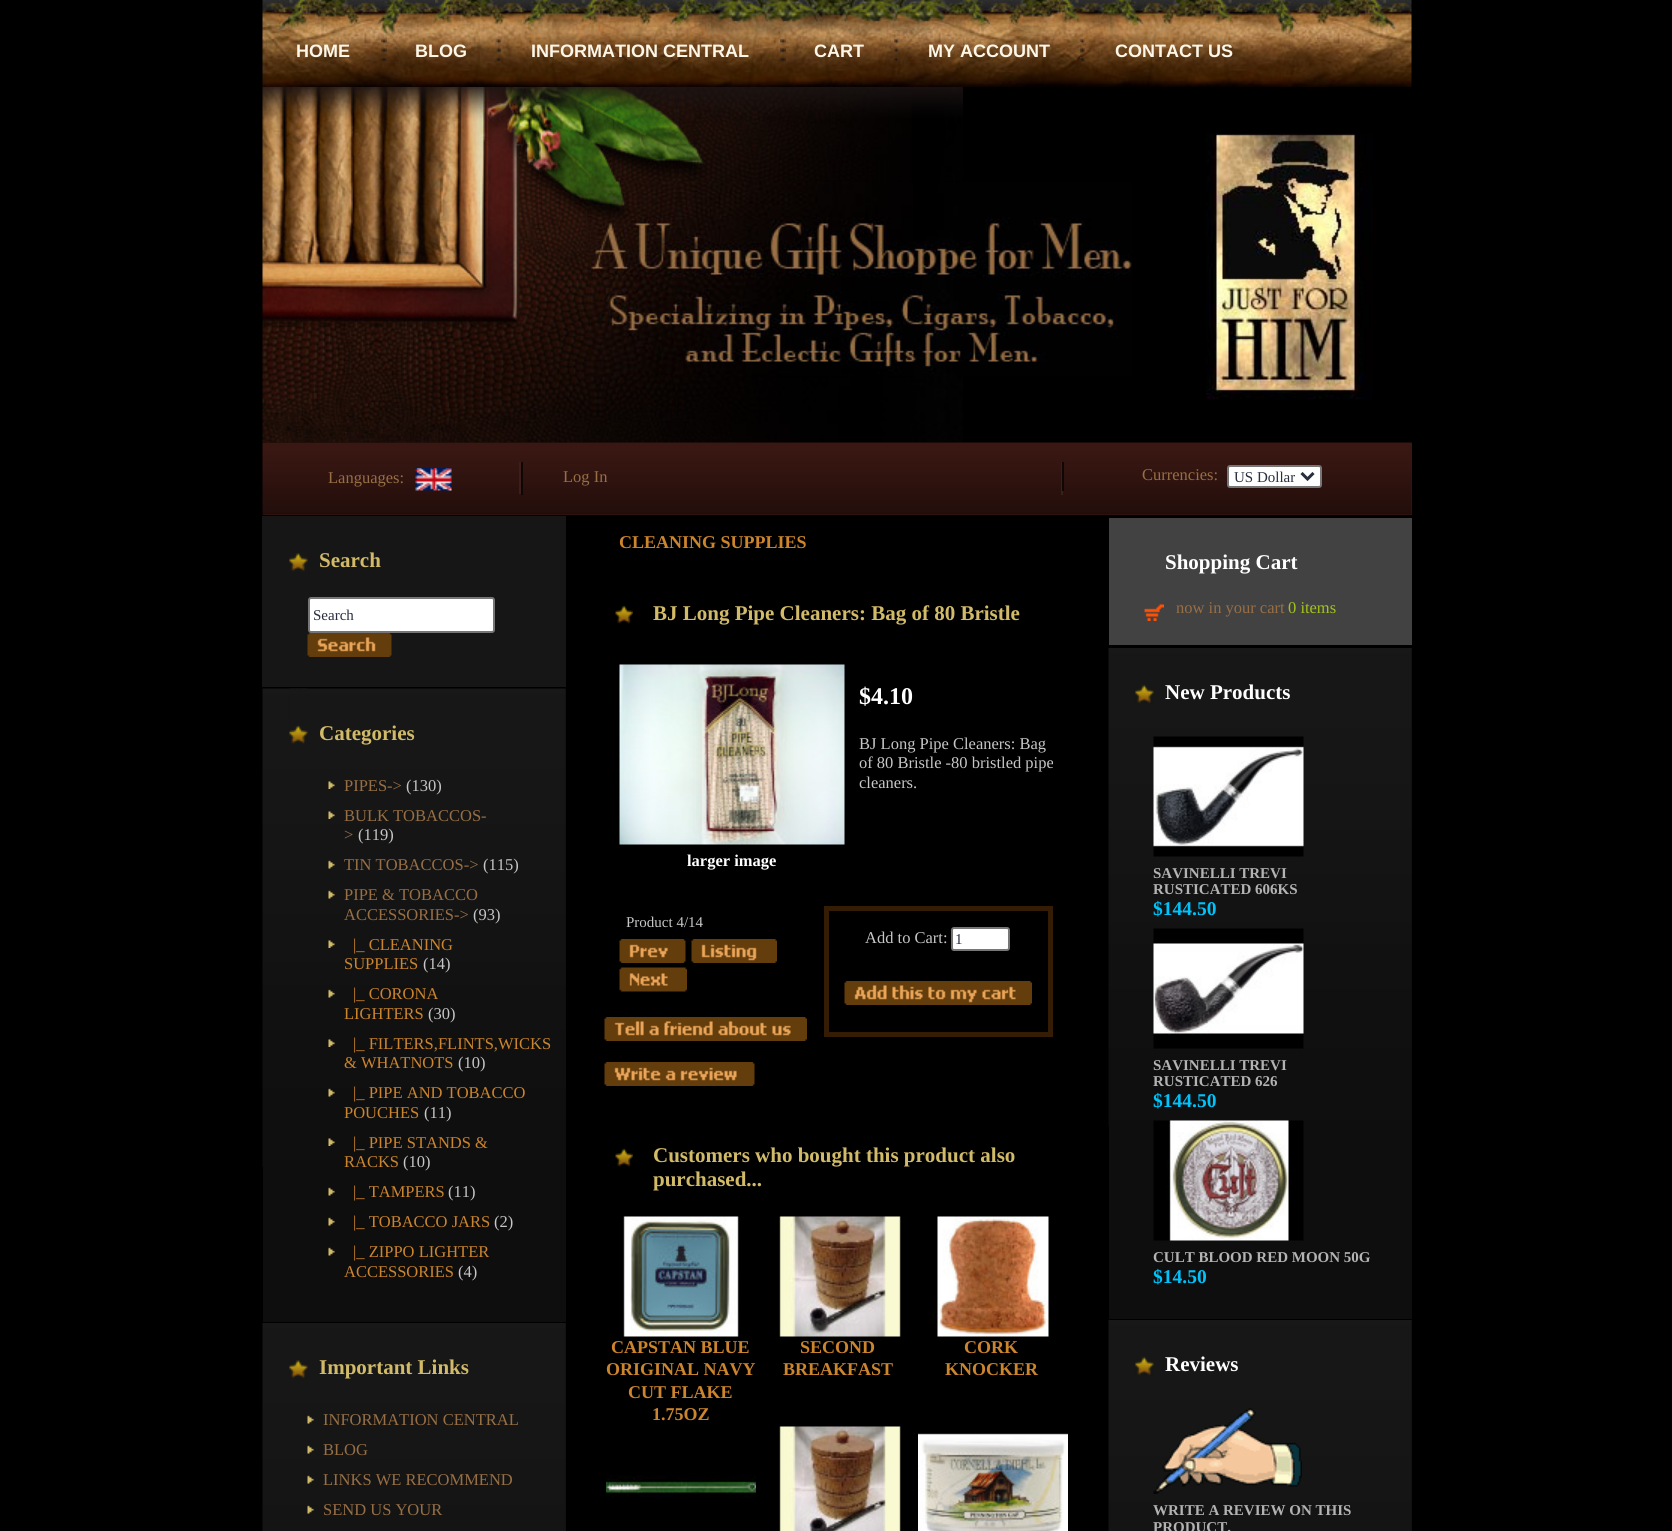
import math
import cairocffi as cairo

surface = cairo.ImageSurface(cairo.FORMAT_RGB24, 1672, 1531)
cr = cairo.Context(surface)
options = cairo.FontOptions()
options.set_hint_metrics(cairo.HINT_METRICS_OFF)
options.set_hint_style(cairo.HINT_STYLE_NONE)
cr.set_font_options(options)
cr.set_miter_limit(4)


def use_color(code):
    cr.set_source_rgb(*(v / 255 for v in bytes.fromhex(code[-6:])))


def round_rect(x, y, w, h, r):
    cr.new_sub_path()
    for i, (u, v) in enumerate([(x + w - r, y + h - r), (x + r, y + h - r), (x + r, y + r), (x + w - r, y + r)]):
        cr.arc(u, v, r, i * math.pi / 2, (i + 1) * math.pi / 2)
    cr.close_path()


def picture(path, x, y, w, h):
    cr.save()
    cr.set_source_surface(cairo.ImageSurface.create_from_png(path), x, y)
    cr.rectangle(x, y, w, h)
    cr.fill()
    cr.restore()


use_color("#000000")
cr.paint()
picture("img1.png", 262, 0, 1150, 87)
cr.select_font_face("Liberation Sans", cairo.FONT_SLANT_NORMAL, cairo.FONT_WEIGHT_BOLD)
cr.set_font_size(18)
use_color("#fef6e7")
cr.move_to(296, 57)
cr.show_text("HOME")
picture("img2.png", 381, 38, 6, 24)
cr.move_to(415, 57)
cr.show_text("BLOG")
picture("img3.png", 496, 38, 5, 24)
cr.move_to(531, 57)
cr.show_text("INFORMATION CENTRAL")
picture("img4.png", 780, 38, 6, 24)
cr.move_to(814, 57)
cr.show_text("CART")
picture("img5.png", 894, 38, 5, 24)
cr.move_to(928, 57)
cr.show_text("MY ACCOUNT")
picture("img6.png", 1080, 38, 5, 24)
cr.move_to(1115, 57)
cr.show_text("CONTACT US")
picture("img7.png", 1206, 133, 167, 267)
picture("img8.png", 262, 87, 701, 356)
picture("img9.png", 589, 181, 544, 196)
picture("img10.png", 345, 432, 2, 2)
use_color("#391813")
cr.rectangle(263, 443, 1149, 72)
cr.fill()
picture("img11.png", 262, 442, 1150, 73)
use_color("#3d1e1a")
cr.rectangle(519, 462, 2, 32)
cr.fill()
cr.select_font_face("Liberation Serif")
cr.set_font_size(16.5)
use_color("#986f44")
cr.move_to(328, 483)
cr.show_text("Languages:")
picture("img12.png", 415, 468, 37, 23)
use_color("#3d1e1a")
cr.rectangle(1061, 462, 2, 33)
cr.fill()
use_color("#0e0706")
cr.rectangle(521, 462, 2, 33)
cr.fill()
use_color("#986f44")
cr.move_to(563, 482)
cr.show_text("Log In")
use_color("#0e0706")
cr.rectangle(1062, 462, 2, 29)
cr.fill()
use_color("#986f44")
cr.move_to(1142, 480)
cr.show_text("Currencies:")
use_color("#ffffff")
round_rect(1228, 466, 93, 21, 2)
cr.fill_preserve()
use_color("#767676")
cr.stroke()
cr.new_path()
cr.move_to(1301.5, 473)
cr.line_to(1307.5, 479)
cr.line_to(1313.5, 473)
use_color("#282e3e")
cr.set_line_width(3)
cr.stroke()
cr.set_font_size(15)
cr.move_to(1234, 482)
cr.show_text("US Dollar")
use_color("#161616")
cr.rectangle(262, 516, 304, 171)
cr.fill()
picture("img13.png", 289, 553, 19, 19)
cr.select_font_face("Liberation Serif", cairo.FONT_SLANT_NORMAL, cairo.FONT_WEIGHT_BOLD)
cr.set_font_size(21)
use_color("#d2bb68")
cr.move_to(319, 567)
cr.show_text("Search")
use_color("#ffffff")
round_rect(309, 598, 185, 34, 2)
cr.fill_preserve()
use_color("#767676")
cr.set_line_width(2)
cr.stroke()
cr.save()
cr.rectangle(314, 606, 175, 18)
cr.clip()
cr.select_font_face("Liberation Serif")
cr.set_font_size(15)
use_color("#282e3e")
cr.move_to(313, 620)
cr.show_text("Search")
cr.restore()
picture("img14.png", 307, 633, 85, 24)
use_color("#0e0e0e")
cr.rectangle(263, 689, 303, 633)
cr.fill()
picture("img15.png", 262, 688, 304, 479)
picture("img16.png", 289, 688, 19, 56)
use_color("#d2bb68")
cr.move_to(319, 740)
cr.show_text("Categories")
picture("img17.png", 328, 781, 7, 8)
cr.select_font_face("Liberation Serif")
cr.set_font_size(16.5)
use_color("#986f44")
cr.move_to(344, 791)
cr.show_text("PIPES->")
use_color("#c7c7c7")
cr.move_to(406, 791)
cr.show_text("(130)")
picture("img17.png", 328, 811, 7, 8)
use_color("#986f44")
cr.move_to(344, 821)
cr.show_text("BULK TOBACCOS-")
cr.move_to(344, 840)
cr.show_text(">")
use_color("#c7c7c7")
cr.move_to(358, 840)
cr.show_text("(119)")
picture("img18.png", 328, 860, 7, 9)
use_color("#986f44")
cr.move_to(344, 870)
cr.show_text("TIN TOBACCOS->")
use_color("#c7c7c7")
cr.move_to(483, 870)
cr.show_text("(115)")
picture("img19.png", 328, 890, 7, 9)
use_color("#986f44")
cr.move_to(344, 900)
cr.show_text("PIPE & TOBACCO")
cr.move_to(344, 920)
cr.show_text("ACCESSORIES->")
use_color("#c7c7c7")
cr.move_to(473, 920)
cr.show_text("(93)")
picture("img20.png", 328, 940, 7, 8)
use_color("#cc842d")
cr.move_to(353, 950)
cr.show_text("|_ CLEANING")
cr.move_to(344, 969)
cr.show_text("SUPPLIES")
use_color("#c7c7c7")
cr.move_to(423, 969)
cr.show_text("(14)")
picture("img21.png", 328, 989, 7, 9)
use_color("#cc842d")
cr.move_to(353, 999)
cr.show_text("|_ CORONA")
cr.move_to(344, 1019)
cr.show_text("LIGHTERS")
use_color("#c7c7c7")
cr.move_to(428, 1019)
cr.show_text("(30)")
picture("img22.png", 328, 1039, 7, 8)
use_color("#cc842d")
cr.move_to(353, 1049)
cr.show_text("|_ FILTERS,FLINTS,WICKS")
cr.move_to(344, 1068)
cr.show_text("& WHATNOTS")
use_color("#c7c7c7")
cr.move_to(458, 1068)
cr.show_text("(10)")
picture("img23.png", 328, 1088, 7, 9)
use_color("#cc842d")
cr.move_to(353, 1098)
cr.show_text("|_ PIPE AND TOBACCO")
cr.move_to(344, 1118)
cr.show_text("POUCHES")
use_color("#c7c7c7")
cr.move_to(424, 1118)
cr.show_text("(11)")
picture("img24.png", 328, 1138, 7, 8)
use_color("#cc842d")
cr.move_to(353, 1148)
cr.show_text("|_ PIPE STANDS &")
cr.move_to(344, 1167)
cr.show_text("RACKS")
use_color("#c7c7c7")
cr.move_to(403, 1167)
cr.show_text("(10)")
picture("img25.png", 328, 1187, 7, 9)
use_color("#cc842d")
cr.move_to(353, 1197)
cr.show_text("|_ TAMPERS")
use_color("#c7c7c7")
cr.move_to(448, 1197)
cr.show_text("(11)")
picture("img25.png", 328, 1217, 7, 9)
use_color("#cc842d")
cr.move_to(353, 1227)
cr.show_text("|_ TOBACCO JARS")
use_color("#c7c7c7")
cr.move_to(494, 1227)
cr.show_text("(2)")
picture("img25.png", 328, 1247, 7, 9)
use_color("#cc842d")
cr.move_to(353, 1257)
cr.show_text("|_ ZIPPO LIGHTER")
cr.move_to(344, 1277)
cr.show_text("ACCESSORIES")
use_color("#c7c7c7")
cr.move_to(458, 1277)
cr.show_text("(4)")
use_color("#0e0e0e")
cr.rectangle(565, 1323, 1, 208)
cr.fill()
picture("img26.png", 262, 1323, 304, 208)
picture("img27.png", 289, 1360, 19, 19)
cr.select_font_face("Liberation Serif", cairo.FONT_SLANT_NORMAL, cairo.FONT_WEIGHT_BOLD)
cr.set_font_size(21)
use_color("#d2bb68")
cr.move_to(319, 1374)
cr.show_text("Important Links")
picture("img28.png", 307, 1415, 7, 9)
cr.select_font_face("Liberation Serif")
cr.set_font_size(16.5)
use_color("#986f44")
cr.move_to(323, 1425)
cr.show_text("INFORMATION CENTRAL")
picture("img28.png", 307, 1445, 7, 9)
cr.move_to(323, 1455)
cr.show_text("BLOG")
picture("img18.png", 307, 1475, 7, 9)
cr.move_to(323, 1485)
cr.show_text("LINKS WE RECOMMEND")
picture("img19.png", 307, 1505, 7, 9)
cr.move_to(323, 1515)
cr.show_text("SEND US YOUR")
cr.select_font_face("Liberation Serif", cairo.FONT_SLANT_NORMAL, cairo.FONT_WEIGHT_BOLD)
cr.set_font_size(18)
use_color("#cc842d")
cr.move_to(619, 548)
cr.show_text("CLEANING SUPPLIES")
picture("img29.png", 615, 605, 18, 19)
cr.set_font_size(21)
use_color("#d2bb68")
cr.move_to(653, 620)
cr.show_text("BJ Long Pipe Cleaners: Bag of 80 Bristle")
cr.set_font_size(24)
use_color("#ffffff")
cr.move_to(859, 704)
cr.show_text("$4.10")
cr.select_font_face("Liberation Serif")
cr.set_font_size(16.5)
use_color("#c7c7c7")
cr.move_to(859, 749)
cr.show_text("BJ Long Pipe Cleaners: Bag")
cr.move_to(859, 768)
cr.show_text("of 80 Bristle -80 bristled pipe")
cr.move_to(859, 788)
cr.show_text("cleaners.")
picture("img30.png", 619, 664, 226, 181)
cr.select_font_face("Liberation Serif", cairo.FONT_SLANT_NORMAL, cairo.FONT_WEIGHT_BOLD)
use_color("#ffffff")
cr.move_to(687, 866)
cr.show_text("larger image")
cr.select_font_face("Liberation Serif")
cr.set_font_size(15)
use_color("#c7c7c7")
cr.move_to(626, 927)
cr.show_text("Product 4/14")
picture("img31.png", 619, 939, 67, 24)
picture("img32.png", 691, 939, 86, 24)
picture("img33.png", 619, 967, 68, 25)
cr.rectangle(826.5, 908.5, 224, 126)
use_color("#341c05")
cr.set_line_width(5)
cr.stroke()
cr.set_font_size(16.5)
use_color("#c7c7c7")
cr.move_to(865, 943)
cr.show_text("Add to Cart:")
use_color("#ffffff")
round_rect(952, 928, 57, 22, 2)
cr.fill_preserve()
use_color("#767676")
cr.set_line_width(2)
cr.stroke()
cr.set_font_size(15)
use_color("#282e3e")
cr.move_to(955, 944)
cr.show_text("1")
picture("img34.png", 844, 981, 188, 24)
picture("img35.png", 604, 1017, 203, 24)
picture("img36.png", 604, 1062, 151, 24)
picture("img29.png", 615, 1148, 18, 19)
cr.select_font_face("Liberation Serif", cairo.FONT_SLANT_NORMAL, cairo.FONT_WEIGHT_BOLD)
cr.set_font_size(21)
use_color("#d2bb68")
cr.move_to(653, 1162)
cr.show_text("Customers who bought this product also")
cr.move_to(653, 1186)
cr.show_text("purchased...")
picture("img37.png", 623, 1216, 116, 121)
cr.set_font_size(18)
use_color("#cc842d")
cr.move_to(611, 1353)
cr.show_text("CAPSTAN BLUE")
cr.move_to(606, 1375)
cr.show_text("ORIGINAL NAVY")
cr.move_to(628, 1398)
cr.show_text("CUT FLAKE")
cr.move_to(652, 1420)
cr.show_text("1.75OZ")
picture("img38.png", 779, 1216, 122, 121)
cr.move_to(800, 1353)
cr.show_text("SECOND")
cr.move_to(783, 1375)
cr.show_text("BREAKFAST")
picture("img39.png", 930, 1216, 120, 121)
cr.move_to(964, 1353)
cr.show_text("CORK")
cr.move_to(945, 1375)
cr.show_text("KNOCKER")
picture("img40.png", 606, 1475, 150, 23)
picture("img41.png", 779, 1426, 122, 105)
picture("img42.png", 918, 1433, 150, 98)
use_color("#424242")
cr.rectangle(1109, 518, 303, 127)
cr.fill()
cr.set_font_size(21)
use_color("#ffffff")
cr.move_to(1165, 569)
cr.show_text("Shopping Cart")
picture("img43.png", 1144, 604, 20, 17)
cr.select_font_face("Liberation Serif")
cr.set_font_size(16.5)
use_color("#986f44")
cr.move_to(1176, 613)
cr.show_text("now in your cart")
use_color("#a3c41a")
cr.move_to(1288, 613)
cr.show_text("0 items")
use_color("#0e0e0e")
cr.rectangle(1109, 648, 303, 671)
cr.fill()
picture("img44.png", 1108, 648, 304, 478)
picture("img27.png", 1135, 685, 19, 19)
cr.select_font_face("Liberation Serif", cairo.FONT_SLANT_NORMAL, cairo.FONT_WEIGHT_BOLD)
cr.set_font_size(21)
use_color("#ffffff")
cr.move_to(1165, 699)
cr.show_text("New Products")
picture("img45.png", 1153, 736, 151, 121)
cr.set_font_size(15)
use_color("#b3b3b3")
cr.move_to(1153, 878)
cr.show_text("SAVINELLI TREVI")
cr.move_to(1153, 894)
cr.show_text("RUSTICATED 606KS")
cr.set_font_size(19.5)
use_color("#00c3fb")
cr.move_to(1153, 915)
cr.show_text("$144.50")
picture("img46.png", 1153, 928, 151, 121)
cr.set_font_size(15)
use_color("#b3b3b3")
cr.move_to(1153, 1070)
cr.show_text("SAVINELLI TREVI")
cr.move_to(1153, 1086)
cr.show_text("RUSTICATED 626")
cr.set_font_size(19.5)
use_color("#00c3fb")
cr.move_to(1153, 1107)
cr.show_text("$144.50")
picture("img47.png", 1153, 1120, 151, 121)
cr.set_font_size(15)
use_color("#b3b3b3")
cr.move_to(1153, 1262)
cr.show_text("CULT BLOOD RED MOON 50G")
cr.set_font_size(19.5)
use_color("#00c3fb")
cr.move_to(1153, 1283)
cr.show_text("$14.50")
use_color("#0e0e0e")
cr.rectangle(1411, 1320, 1, 211)
cr.fill()
picture("img48.png", 1108, 1320, 304, 211)
picture("img27.png", 1135, 1357, 19, 19)
cr.set_font_size(21)
use_color("#ffffff")
cr.move_to(1165, 1371)
cr.show_text("Reviews")
picture("img49.png", 1153, 1408, 149, 86)
cr.set_font_size(15)
use_color("#b3b3b3")
cr.move_to(1153, 1515)
cr.show_text("WRITE A REVIEW ON THIS")
cr.move_to(1153, 1532)
cr.show_text("PRODUCT.")
surface.write_to_png("result.png")
